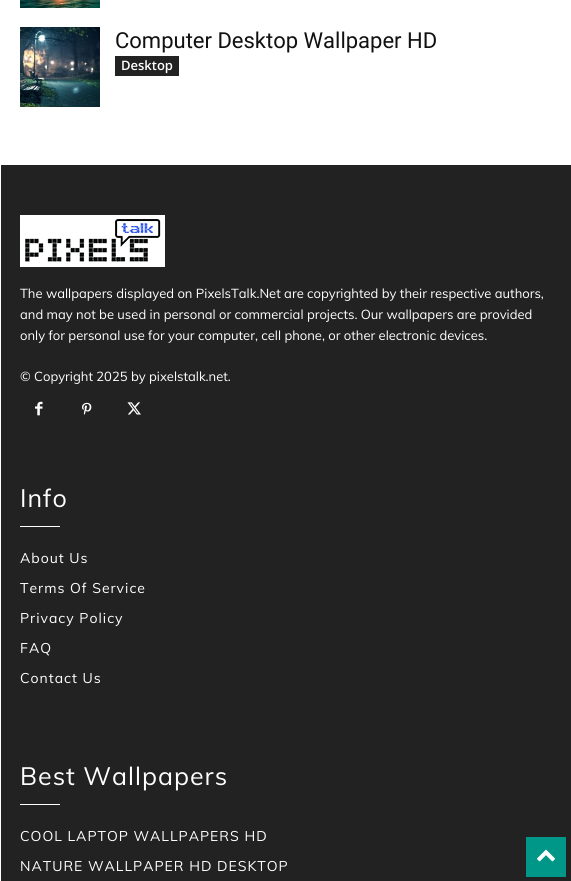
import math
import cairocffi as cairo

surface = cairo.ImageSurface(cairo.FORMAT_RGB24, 571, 881)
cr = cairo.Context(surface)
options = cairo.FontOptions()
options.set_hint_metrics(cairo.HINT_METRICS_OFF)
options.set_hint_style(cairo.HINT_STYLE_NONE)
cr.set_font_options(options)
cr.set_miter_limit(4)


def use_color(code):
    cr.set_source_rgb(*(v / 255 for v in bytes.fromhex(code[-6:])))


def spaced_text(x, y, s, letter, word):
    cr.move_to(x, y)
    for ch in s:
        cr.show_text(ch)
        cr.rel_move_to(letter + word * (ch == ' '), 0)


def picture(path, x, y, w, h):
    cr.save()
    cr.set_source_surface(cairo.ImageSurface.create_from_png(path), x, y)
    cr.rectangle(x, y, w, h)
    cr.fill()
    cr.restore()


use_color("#ffffff")
cr.paint()
picture("img1.png", 20, 0, 80, 8)
picture("img2.png", 20, 27, 80, 80)
cr.select_font_face("Roboto")
cr.set_font_size(22)
use_color("#111111")
cr.move_to(115, 48)
cr.show_text("Computer Desktop Wallpaper HD")
use_color("#222222")
cr.rectangle(115, 56, 64, 20)
cr.fill()
cr.select_font_face("Open Sans SemiBold")
cr.set_font_size(13)
use_color("#ffffff")
cr.move_to(121, 70)
cr.show_text("Desktop")
use_color("#222222")
cr.rectangle(1, 165, 570, 716)
cr.fill()
picture("img3.png", 20, 215, 145, 52)
cr.select_font_face("Muli")
use_color("#ffffff")
cr.move_to(20, 298)
cr.show_text("The wallpapers displayed on PixelsTalk.Net are copyrighted by their respective authors,")
cr.move_to(20, 319)
cr.show_text("and may not be used in personal or commercial projects. Our wallpapers are provided")
cr.move_to(20, 340)
cr.show_text("only for personal use for your computer, cell phone, or other electronic devices.")
cr.move_to(20, 381)
cr.show_text("© Copyright 2025 by pixelstalk.net.")
picture("img4.png", 35, 401, 8, 15)
picture("img5.png", 82, 402, 10, 13)
picture("img6.png", 127, 402, 14, 13)
cr.set_font_size(25)
spaced_text(20, 507, "Info", 1, 0)
cr.rectangle(20, 526, 40, 1)
cr.fill()
cr.set_font_size(14)
spaced_text(20, 563, "About Us", 1, 0)
spaced_text(20, 593, "Terms Of Service", 1, 0)
spaced_text(20, 623, "Privacy Policy", 1, 0)
spaced_text(20, 653, "FAQ", 1, 0)
spaced_text(20, 683, "Contact Us", 1, 0)
cr.set_font_size(25)
spaced_text(20, 785, "Best Wallpapers", 1, 0)
cr.rectangle(20, 804, 40, 1)
cr.fill()
cr.set_font_size(14)
spaced_text(20, 841, "COOL LAPTOP WALLPAPERS HD", 1, 0)
spaced_text(20, 871, "NATURE WALLPAPER HD DESKTOP", 1, 0)
use_color("#009688")
cr.rectangle(526, 837, 40, 40)
cr.fill()
picture("img7.png", 537, 849, 18, 13)
surface.write_to_png("result.png")
